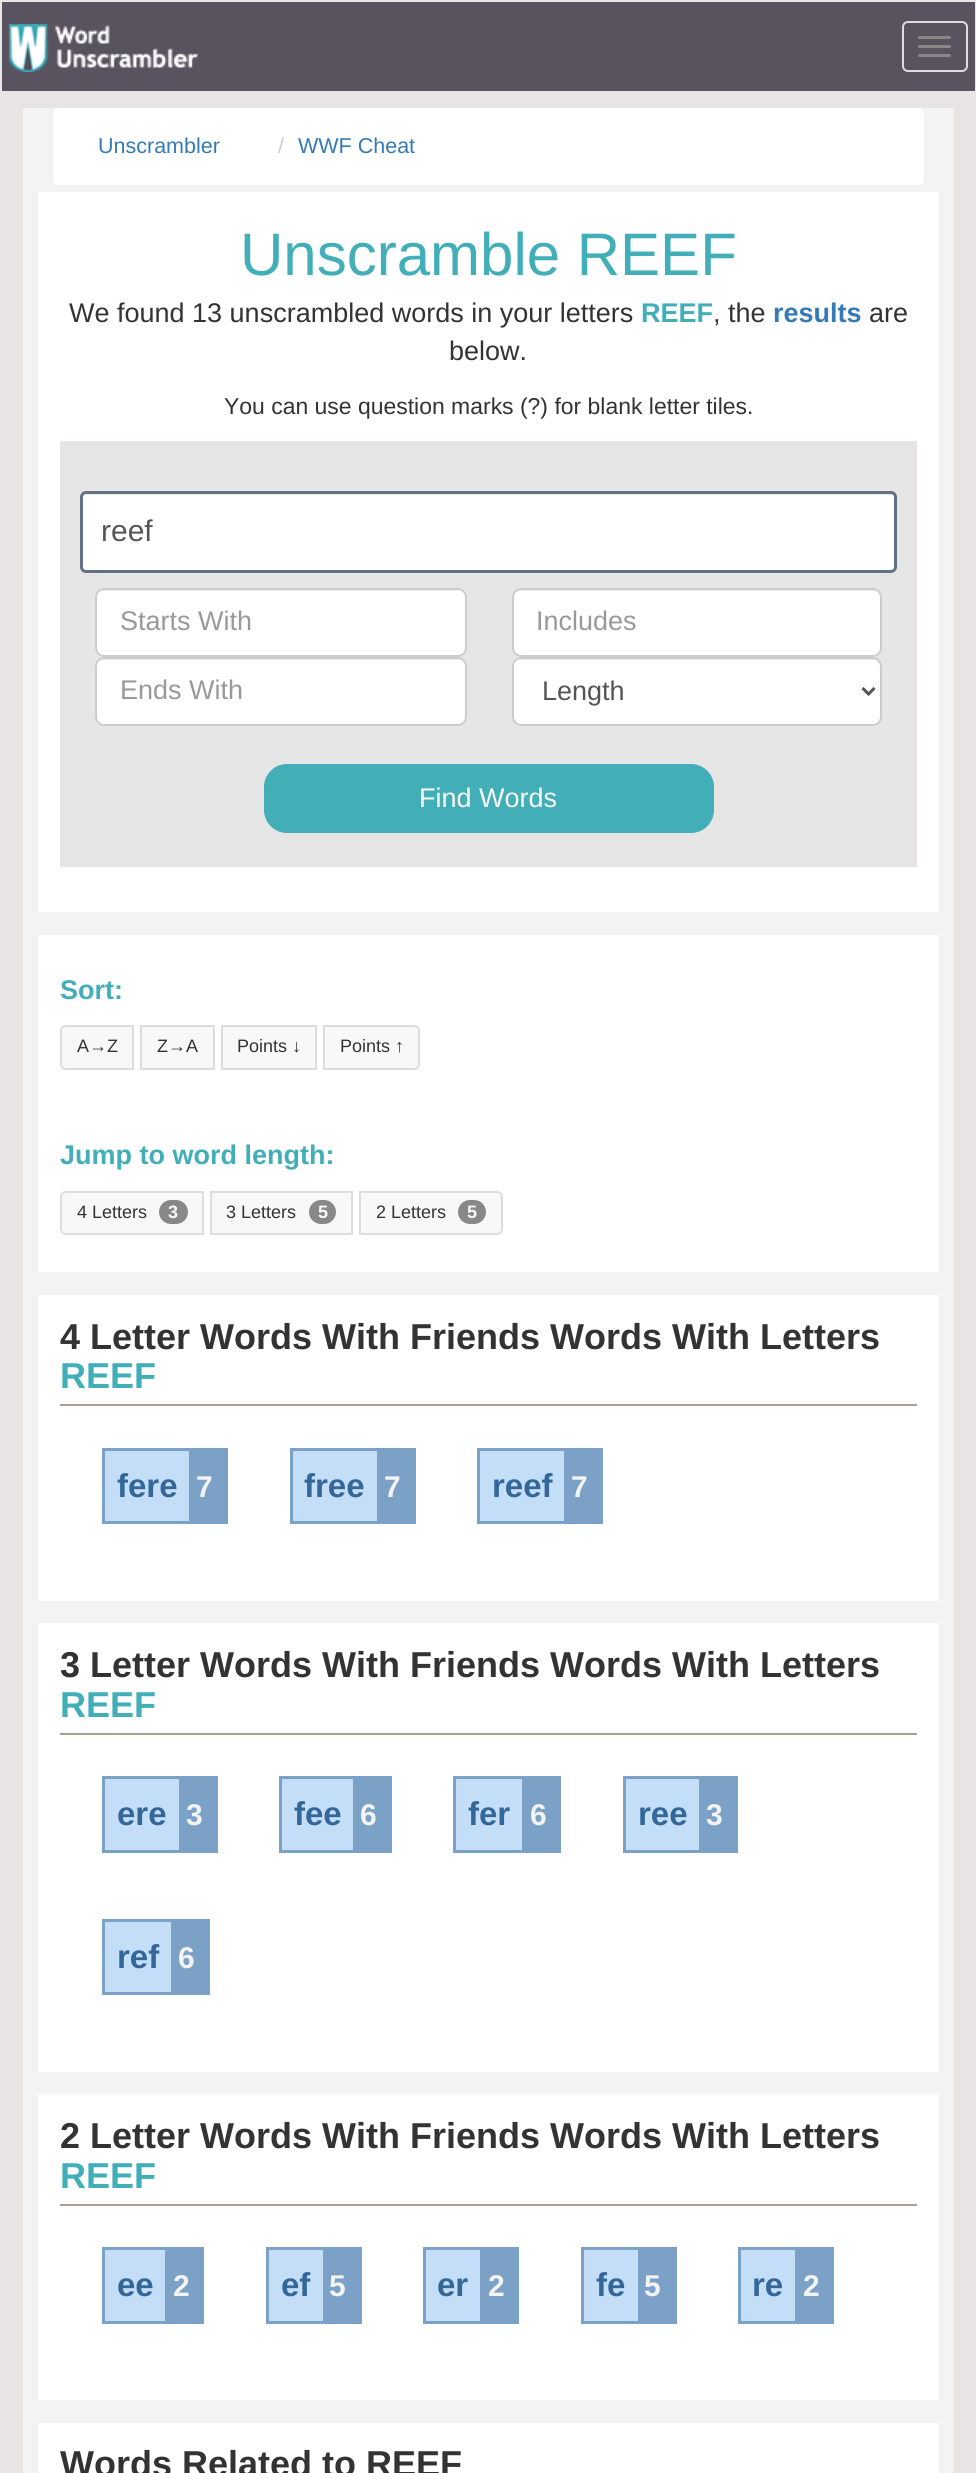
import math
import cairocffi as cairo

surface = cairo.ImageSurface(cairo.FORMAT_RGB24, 976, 2473)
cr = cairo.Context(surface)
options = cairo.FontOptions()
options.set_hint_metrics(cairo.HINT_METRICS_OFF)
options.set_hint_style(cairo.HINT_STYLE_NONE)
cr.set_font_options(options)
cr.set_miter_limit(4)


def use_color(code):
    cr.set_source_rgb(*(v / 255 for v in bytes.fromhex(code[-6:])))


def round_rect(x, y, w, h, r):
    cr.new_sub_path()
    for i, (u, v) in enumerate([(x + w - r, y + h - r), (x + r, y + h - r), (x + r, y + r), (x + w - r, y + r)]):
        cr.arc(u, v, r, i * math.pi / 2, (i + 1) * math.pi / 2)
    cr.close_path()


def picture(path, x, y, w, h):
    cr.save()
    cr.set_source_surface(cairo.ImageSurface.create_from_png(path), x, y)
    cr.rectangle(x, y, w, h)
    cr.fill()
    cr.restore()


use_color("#e9e4e4")
cr.paint()
use_color("#595360")
cr.rectangle(1, 1, 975, 91)
cr.fill_preserve()
use_color("#e7e7e7")
cr.stroke()
picture("img1.png", 9, 24, 189, 48)
round_rect(903, 22, 64, 49, 5)
use_color("#dddddd")
cr.stroke()
use_color("#888888")
round_rect(918, 36, 33, 3, 1.5)
cr.fill()
round_rect(918, 45, 33, 3, 1.5)
cr.fill()
round_rect(918, 54, 33, 3, 1.5)
cr.fill()
use_color("#f3f3f3")
cr.rectangle(23, 108, 931, 2365)
cr.fill()
use_color("#ffffff")
round_rect(53, 108, 871, 77, 6)
cr.fill()
cr.select_font_face("Liberation Sans")
cr.set_font_size(21.5)
use_color("#337ab7")
cr.move_to(98, 153)
cr.show_text("Unscrambler")
use_color("#cccccc")
cr.move_to(278, 153)
cr.show_text("/")
use_color("#337ab7")
cr.move_to(298, 153)
cr.show_text("WWF Cheat")
use_color("#ffffff")
cr.rectangle(38, 192, 901, 720)
cr.fill()
cr.set_font_size(60)
use_color("#41aeb8")
cr.move_to(240, 275)
cr.show_text("Unscramble REEF")
cr.set_font_size(27)
use_color("#333333")
cr.move_to(69, 322)
cr.show_text("We found 13 unscrambled words in your letters")
cr.select_font_face("Liberation Sans", cairo.FONT_SLANT_NORMAL, cairo.FONT_WEIGHT_BOLD)
use_color("#41aeb8")
cr.move_to(641, 322)
cr.show_text("REEF")
cr.select_font_face("Liberation Sans")
use_color("#333333")
cr.move_to(713, 322)
cr.show_text(", the")
cr.select_font_face("Liberation Sans", cairo.FONT_SLANT_NORMAL, cairo.FONT_WEIGHT_BOLD)
use_color("#337ab7")
cr.move_to(773, 322)
cr.show_text("results")
cr.select_font_face("Liberation Sans")
use_color("#333333")
cr.move_to(869, 322)
cr.show_text("are")
cr.move_to(449, 360)
cr.show_text("below.")
cr.set_font_size(22.95)
cr.move_to(224, 414)
cr.show_text("You can use question marks (?) for blank letter tiles.")
use_color("#e6e6e6")
cr.rectangle(62.5, 443.5, 852, 421)
cr.fill_preserve()
use_color("#e6e4e4")
cr.set_line_width(5)
cr.stroke()
use_color("#ffffff")
round_rect(80, 491, 817, 82, 6)
cr.fill()
use_color("#ececec")
cr.new_path()
cr.move_to(86, 495)
cr.line_to(891, 495)
cr.curve_to(893, 495, 894, 496, 894, 498)
cr.line_to(894, 497)
cr.curve_to(894, 495, 893, 494, 891, 494)
cr.line_to(86, 494)
cr.curve_to(85, 494, 84, 495, 83, 496)
cr.close_path()
cr.fill()
round_rect(81.5, 492.5, 814, 79, 4.5)
use_color("#627282")
cr.set_line_width(3)
cr.stroke()
cr.set_font_size(30)
use_color("#555555")
cr.move_to(101, 541)
cr.show_text("reef")
use_color("#ffffff")
round_rect(95, 588, 372, 69, 9)
cr.fill()
use_color("#ececec")
cr.new_path()
cr.move_to(104, 591)
cr.line_to(458, 591)
cr.curve_to(462, 591, 465, 594, 465, 598)
cr.curve_to(465, 594, 461, 590, 457, 590)
cr.line_to(104, 590)
cr.curve_to(100, 590, 96, 594, 96, 598)
cr.curve_to(96, 594, 99, 591, 104, 591)
cr.close_path()
cr.fill()
round_rect(96, 589, 370, 67, 8)
use_color("#cccccc")
cr.set_line_width(2)
cr.stroke()
cr.set_font_size(27)
use_color("#999999")
cr.move_to(120, 630)
cr.show_text("Starts With")
use_color("#ffffff")
round_rect(512, 588, 370, 69, 9)
cr.fill()
use_color("#ececec")
cr.new_path()
cr.move_to(520, 591)
cr.line_to(873, 591)
cr.curve_to(877, 591, 880, 594, 880, 598)
cr.line_to(880, 650)
cr.line_to(880, 653)
cr.curve_to(880, 651, 881, 650, 881, 648)
cr.line_to(881, 598)
cr.curve_to(881, 594, 877, 590, 873, 590)
cr.line_to(521, 590)
cr.curve_to(517, 590, 513, 594, 513, 598)
cr.curve_to(513, 594, 516, 591, 520, 591)
cr.close_path()
cr.fill()
round_rect(513, 589, 368, 67, 8)
use_color("#cccccc")
cr.stroke()
use_color("#999999")
cr.move_to(536, 630)
cr.show_text("Includes")
use_color("#ffffff")
round_rect(95, 657, 372, 69, 9)
cr.fill()
use_color("#ececec")
cr.new_path()
cr.move_to(104, 660)
cr.line_to(458, 660)
cr.curve_to(462, 660, 465, 663, 465, 668)
cr.curve_to(465, 663, 462, 659, 457, 659)
cr.line_to(104, 659)
cr.curve_to(99, 659, 96, 663, 96, 668)
cr.curve_to(96, 663, 99, 660, 104, 660)
cr.close_path()
cr.fill()
round_rect(96, 658, 370, 67, 8)
use_color("#cccccc")
cr.stroke()
use_color("#999999")
cr.move_to(120, 699)
cr.show_text("Ends With")
use_color("#ffffff")
round_rect(512, 657, 370, 69, 9)
cr.fill()
use_color("#ececec")
cr.new_path()
cr.move_to(520, 660)
cr.line_to(873, 660)
cr.curve_to(877, 660, 880, 663, 880, 668)
cr.line_to(880, 718)
cr.line_to(879, 722)
cr.curve_to(880, 721, 881, 719, 881, 717)
cr.line_to(881, 667)
cr.curve_to(881, 663, 877, 659, 873, 659)
cr.line_to(521, 659)
cr.curve_to(517, 659, 513, 663, 513, 667)
cr.line_to(513, 668)
cr.curve_to(513, 663, 516, 660, 520, 660)
cr.close_path()
cr.fill()
round_rect(513, 658, 368, 67, 8)
use_color("#cccccc")
cr.stroke()
cr.new_path()
cr.move_to(862.5, 688)
cr.line_to(868.5, 694)
cr.line_to(874.5, 688)
use_color("#555555")
cr.set_line_width(3)
cr.stroke()
cr.move_to(542, 700)
cr.show_text("Length")
use_color("#41aeb8")
round_rect(265, 765, 448, 67, 22)
cr.fill_preserve()
cr.set_line_width(2)
cr.stroke()
use_color("#fafafa")
cr.move_to(419, 807)
cr.show_text("Find Words")
use_color("#ffffff")
cr.rectangle(38, 935, 901, 337)
cr.fill()
cr.select_font_face("Liberation Sans", cairo.FONT_SLANT_NORMAL, cairo.FONT_WEIGHT_BOLD)
use_color("#41aeb8")
cr.move_to(60, 999)
cr.show_text("Sort:")
use_color("#f8f8f8")
cr.new_path()
cr.move_to(66, 1026)
cr.line_to(133, 1026)
cr.line_to(133, 1069)
cr.line_to(66, 1069)
cr.curve_to(63, 1069, 61, 1067, 61, 1064)
cr.line_to(61, 1031)
cr.curve_to(61, 1028, 63, 1026, 66, 1026)
cr.close_path()
cr.fill_preserve()
use_color("#dddddd")
cr.stroke()
cr.select_font_face("Liberation Sans")
cr.set_font_size(18)
use_color("#333333")
cr.move_to(77, 1052)
cr.show_text("A→Z")
use_color("#f8f8f8")
cr.rectangle(141, 1026, 73, 43)
cr.fill_preserve()
use_color("#dddddd")
cr.stroke()
use_color("#333333")
cr.move_to(157, 1052)
cr.show_text("Z→A")
use_color("#f8f8f8")
cr.rectangle(222, 1026, 94, 43)
cr.fill_preserve()
use_color("#dddddd")
cr.stroke()
use_color("#333333")
cr.move_to(237, 1052)
cr.show_text("Points ↓")
use_color("#f8f8f8")
cr.new_path()
cr.move_to(324, 1026)
cr.line_to(414, 1026)
cr.curve_to(417, 1026, 419, 1028, 419, 1031)
cr.line_to(419, 1064)
cr.curve_to(419, 1067, 417, 1069, 414, 1069)
cr.line_to(324, 1069)
cr.close_path()
cr.fill_preserve()
use_color("#dddddd")
cr.stroke()
use_color("#333333")
cr.move_to(340, 1052)
cr.show_text("Points ↑")
cr.select_font_face("Liberation Sans", cairo.FONT_SLANT_NORMAL, cairo.FONT_WEIGHT_BOLD)
cr.set_font_size(27)
use_color("#41aeb8")
cr.move_to(60, 1164)
cr.show_text("Jump to word length:")
use_color("#f8f8f8")
cr.new_path()
cr.move_to(66, 1192)
cr.line_to(203, 1192)
cr.line_to(203, 1234)
cr.line_to(66, 1234)
cr.curve_to(63, 1234, 61, 1232, 61, 1229)
cr.line_to(61, 1197)
cr.curve_to(61, 1194, 63, 1192, 66, 1192)
cr.close_path()
cr.fill_preserve()
use_color("#dddddd")
cr.stroke()
cr.select_font_face("Liberation Sans")
cr.set_font_size(18)
use_color("#333333")
cr.move_to(77, 1218)
cr.show_text("4 Letters")
use_color("#888888")
round_rect(159, 1200, 29, 24, 12)
cr.fill()
cr.select_font_face("Liberation Sans", cairo.FONT_SLANT_NORMAL, cairo.FONT_WEIGHT_BOLD)
use_color("#fafafa")
cr.move_to(168, 1218)
cr.show_text("3")
use_color("#f8f8f8")
cr.rectangle(211, 1192, 141, 42)
cr.fill_preserve()
use_color("#dddddd")
cr.stroke()
cr.select_font_face("Liberation Sans")
use_color("#333333")
cr.move_to(226, 1218)
cr.show_text("3 Letters")
use_color("#888888")
round_rect(309, 1200, 27, 24, 12)
cr.fill()
cr.select_font_face("Liberation Sans", cairo.FONT_SLANT_NORMAL, cairo.FONT_WEIGHT_BOLD)
use_color("#fafafa")
cr.move_to(318, 1218)
cr.show_text("5")
use_color("#f8f8f8")
cr.new_path()
cr.move_to(360, 1192)
cr.line_to(497, 1192)
cr.curve_to(500, 1192, 502, 1194, 502, 1197)
cr.line_to(502, 1229)
cr.curve_to(502, 1232, 500, 1234, 497, 1234)
cr.line_to(360, 1234)
cr.close_path()
cr.fill_preserve()
use_color("#dddddd")
cr.stroke()
cr.select_font_face("Liberation Sans")
use_color("#333333")
cr.move_to(376, 1218)
cr.show_text("2 Letters")
use_color("#888888")
round_rect(458, 1200, 28, 24, 12)
cr.fill()
cr.select_font_face("Liberation Sans", cairo.FONT_SLANT_NORMAL, cairo.FONT_WEIGHT_BOLD)
use_color("#fafafa")
cr.move_to(467, 1218)
cr.show_text("5")
use_color("#ffffff")
cr.rectangle(38, 1295, 901, 306)
cr.fill()
use_color("#a89f99")
cr.rectangle(60, 1404, 857, 2)
cr.fill()
cr.set_font_size(36)
use_color("#333333")
cr.move_to(60, 1349)
cr.show_text("4 Letter Words With Friends Words With Letters")
use_color("#41aeb8")
cr.move_to(60, 1388)
cr.show_text("REEF")
use_color("#7ca1c7")
cr.rectangle(102, 1448, 126, 76)
cr.fill()
use_color("#c4def8")
cr.rectangle(105, 1451, 84, 70)
cr.fill()
cr.set_font_size(33)
use_color("#336699")
cr.move_to(117, 1497)
cr.show_text("fere")
cr.set_font_size(30)
use_color("#f3f3f3")
cr.move_to(196, 1497)
cr.show_text("7")
use_color("#7ca1c7")
cr.rectangle(290, 1448, 126, 76)
cr.fill()
use_color("#c4def8")
cr.rectangle(293, 1451, 84, 70)
cr.fill()
cr.set_font_size(33)
use_color("#336699")
cr.move_to(304, 1497)
cr.show_text("free")
cr.set_font_size(30)
use_color("#f3f3f3")
cr.move_to(384, 1497)
cr.show_text("7")
use_color("#7ca1c7")
cr.rectangle(477, 1448, 126, 76)
cr.fill()
use_color("#c4def8")
cr.rectangle(480, 1451, 84, 70)
cr.fill()
cr.set_font_size(33)
use_color("#336699")
cr.move_to(492, 1497)
cr.show_text("reef")
cr.set_font_size(30)
use_color("#f3f3f3")
cr.move_to(571, 1497)
cr.show_text("7")
use_color("#ffffff")
cr.rectangle(38, 1623, 901, 449)
cr.fill()
use_color("#a89f99")
cr.rectangle(60, 1733, 857, 2)
cr.fill()
cr.set_font_size(36)
use_color("#333333")
cr.move_to(60, 1677)
cr.show_text("3 Letter Words With Friends Words With Letters")
use_color("#41aeb8")
cr.move_to(60, 1717)
cr.show_text("REEF")
use_color("#7ca1c7")
cr.rectangle(102, 1776, 116, 77)
cr.fill()
use_color("#c4def8")
cr.rectangle(105, 1779, 74, 71)
cr.fill()
cr.set_font_size(33)
use_color("#336699")
cr.move_to(117, 1825)
cr.show_text("ere")
cr.set_font_size(30)
use_color("#f3f3f3")
cr.move_to(186, 1825)
cr.show_text("3")
use_color("#7ca1c7")
cr.rectangle(279, 1776, 113, 77)
cr.fill()
use_color("#c4def8")
cr.rectangle(282, 1779, 71, 71)
cr.fill()
cr.set_font_size(33)
use_color("#336699")
cr.move_to(294, 1825)
cr.show_text("fee")
cr.set_font_size(30)
use_color("#f3f3f3")
cr.move_to(360, 1825)
cr.show_text("6")
use_color("#7ca1c7")
cr.rectangle(453, 1776, 108, 77)
cr.fill()
use_color("#c4def8")
cr.rectangle(456, 1779, 66, 71)
cr.fill()
cr.set_font_size(33)
use_color("#336699")
cr.move_to(468, 1825)
cr.show_text("fer")
cr.set_font_size(30)
use_color("#f3f3f3")
cr.move_to(530, 1825)
cr.show_text("6")
use_color("#7ca1c7")
cr.rectangle(623, 1776, 115, 77)
cr.fill()
use_color("#c4def8")
cr.rectangle(626, 1779, 73, 71)
cr.fill()
cr.set_font_size(33)
use_color("#336699")
cr.move_to(638, 1825)
cr.show_text("ree")
cr.set_font_size(30)
use_color("#f3f3f3")
cr.move_to(706, 1825)
cr.show_text("3")
use_color("#7ca1c7")
cr.rectangle(102, 1919, 108, 76)
cr.fill()
use_color("#c4def8")
cr.rectangle(105, 1922, 66, 70)
cr.fill()
cr.set_font_size(33)
use_color("#336699")
cr.move_to(117, 1968)
cr.show_text("ref")
cr.set_font_size(30)
use_color("#f3f3f3")
cr.move_to(178, 1968)
cr.show_text("6")
use_color("#ffffff")
cr.rectangle(38, 2094, 901, 306)
cr.fill()
use_color("#a89f99")
cr.rectangle(60, 2204, 857, 2)
cr.fill()
cr.set_font_size(36)
use_color("#333333")
cr.move_to(60, 2148)
cr.show_text("2 Letter Words With Friends Words With Letters")
use_color("#41aeb8")
cr.move_to(60, 2188)
cr.show_text("REEF")
use_color("#7ca1c7")
cr.rectangle(102, 2247, 102, 77)
cr.fill()
use_color("#c4def8")
cr.rectangle(105, 2250, 60, 71)
cr.fill()
cr.set_font_size(33)
use_color("#336699")
cr.move_to(117, 2296)
cr.show_text("ee")
cr.set_font_size(30)
use_color("#f3f3f3")
cr.move_to(173, 2296)
cr.show_text("2")
use_color("#7ca1c7")
cr.rectangle(266, 2247, 96, 77)
cr.fill()
use_color("#c4def8")
cr.rectangle(269, 2250, 54, 71)
cr.fill()
cr.set_font_size(33)
use_color("#336699")
cr.move_to(281, 2296)
cr.show_text("ef")
cr.set_font_size(30)
use_color("#f3f3f3")
cr.move_to(329, 2296)
cr.show_text("5")
use_color("#7ca1c7")
cr.rectangle(423, 2247, 96, 77)
cr.fill()
use_color("#c4def8")
cr.rectangle(426, 2250, 54, 71)
cr.fill()
cr.set_font_size(33)
use_color("#336699")
cr.move_to(437, 2296)
cr.show_text("er")
cr.set_font_size(30)
use_color("#f3f3f3")
cr.move_to(488, 2296)
cr.show_text("2")
use_color("#7ca1c7")
cr.rectangle(581, 2247, 96, 77)
cr.fill()
use_color("#c4def8")
cr.rectangle(584, 2250, 54, 71)
cr.fill()
cr.set_font_size(33)
use_color("#336699")
cr.move_to(596, 2296)
cr.show_text("fe")
cr.set_font_size(30)
use_color("#f3f3f3")
cr.move_to(644, 2296)
cr.show_text("5")
use_color("#7ca1c7")
cr.rectangle(738, 2247, 96, 77)
cr.fill()
use_color("#c4def8")
cr.rectangle(741, 2250, 54, 71)
cr.fill()
cr.set_font_size(33)
use_color("#336699")
cr.move_to(752, 2296)
cr.show_text("re")
cr.set_font_size(30)
use_color("#f3f3f3")
cr.move_to(803, 2296)
cr.show_text("2")
use_color("#ffffff")
cr.rectangle(38, 2423, 901, 50)
cr.fill()
cr.set_font_size(36)
use_color("#333333")
cr.move_to(60, 2476)
cr.show_text("Words Related to REEF")
surface.write_to_png("result.png")
